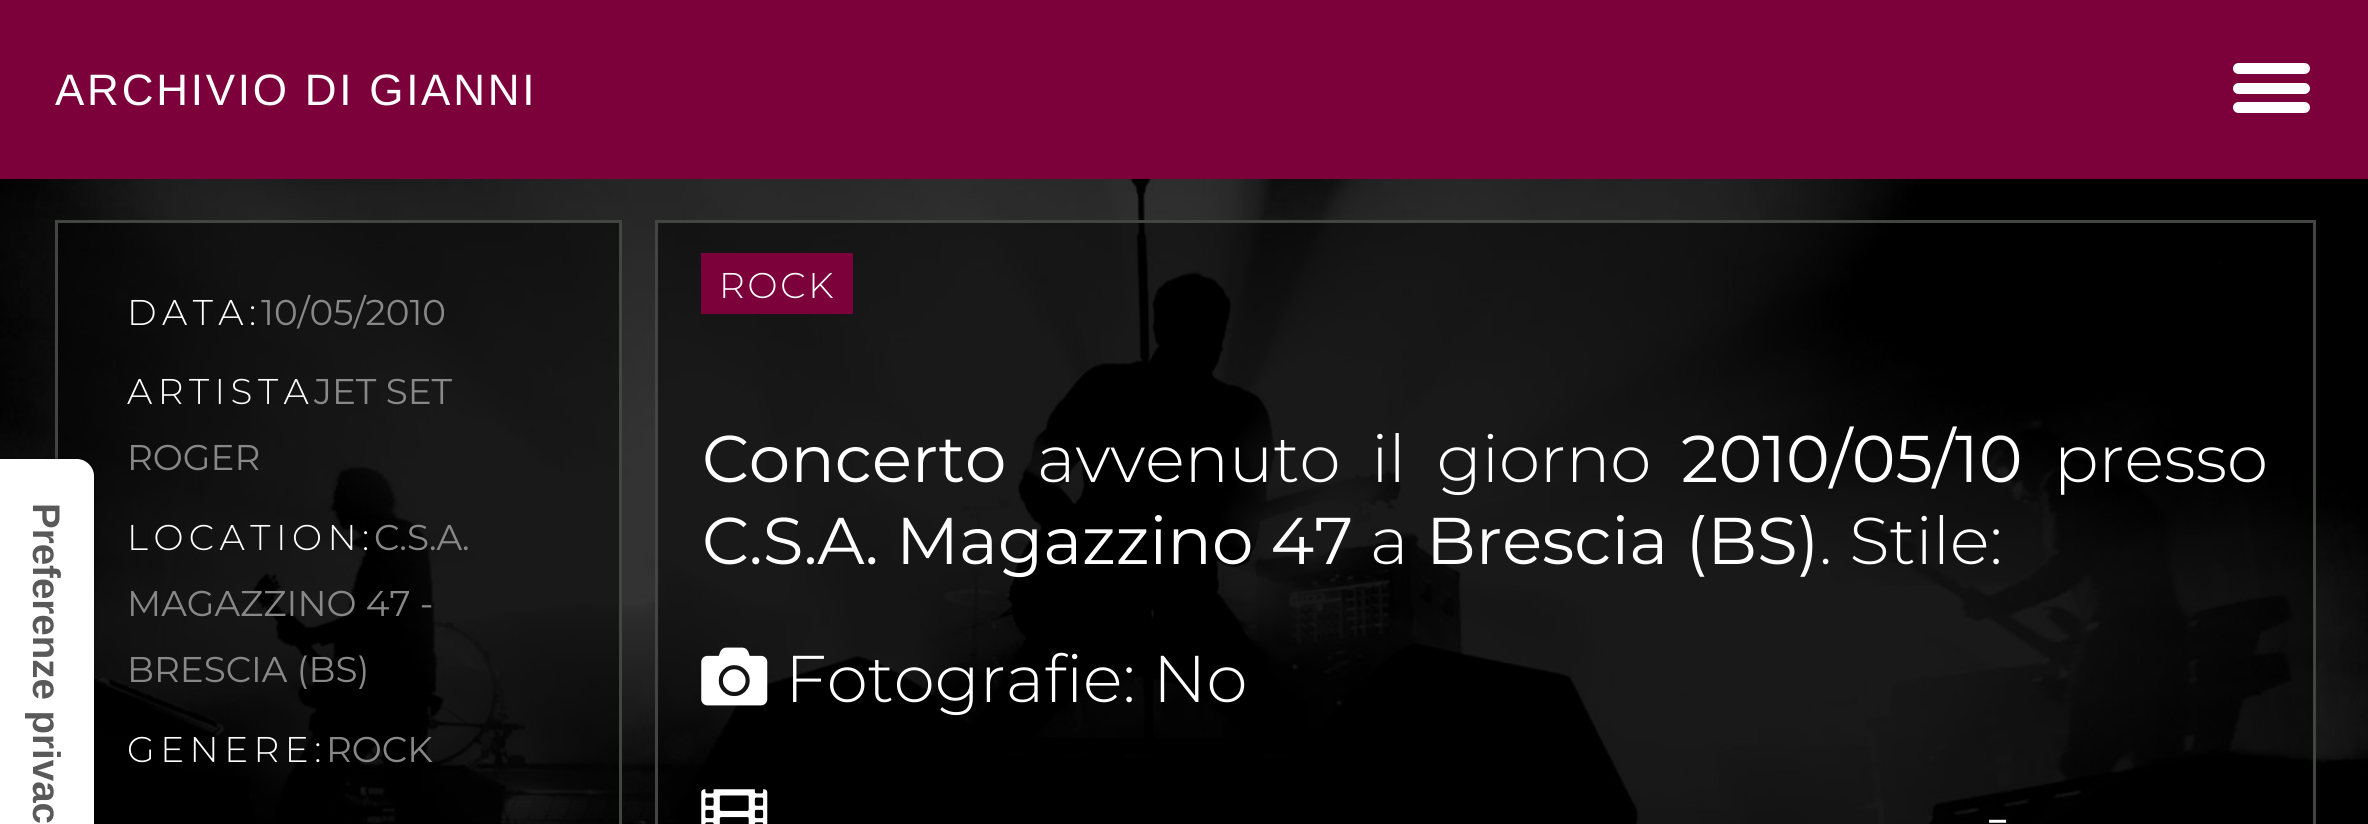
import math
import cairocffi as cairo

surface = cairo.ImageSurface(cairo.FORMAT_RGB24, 2368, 824)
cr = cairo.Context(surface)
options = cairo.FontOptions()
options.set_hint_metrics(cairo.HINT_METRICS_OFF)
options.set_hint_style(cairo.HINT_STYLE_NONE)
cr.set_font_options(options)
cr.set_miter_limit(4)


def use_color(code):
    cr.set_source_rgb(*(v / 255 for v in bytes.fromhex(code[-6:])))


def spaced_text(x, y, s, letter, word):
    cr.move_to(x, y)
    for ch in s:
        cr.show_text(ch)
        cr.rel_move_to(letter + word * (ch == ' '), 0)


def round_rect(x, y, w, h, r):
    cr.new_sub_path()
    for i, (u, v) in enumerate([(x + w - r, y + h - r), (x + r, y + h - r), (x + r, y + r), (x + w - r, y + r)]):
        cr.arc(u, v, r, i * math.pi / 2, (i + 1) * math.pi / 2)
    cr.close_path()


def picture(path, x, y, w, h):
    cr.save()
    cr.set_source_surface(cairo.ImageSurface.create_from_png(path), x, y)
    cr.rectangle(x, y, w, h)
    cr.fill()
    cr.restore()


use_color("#ffffff")
cr.paint()
picture("img1.png", 0, 179, 2368, 645)
cr.set_source_rgba(0, 0, 0, 0.5)
cr.rectangle(56.5, 221.5, 564, 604)
cr.fill_preserve()
use_color("#434543")
cr.set_line_width(3)
cr.stroke()
cr.new_path()
cr.move_to(95, 476)
cr.line_to(95, 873)
cr.curve_to(95, 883, 87, 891, 77, 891)
cr.line_to(-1.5, 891)
cr.line_to(-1.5, 458)
cr.line_to(77, 458)
cr.curve_to(87, 458, 95, 466, 95, 476)
cr.close_path()
cr.set_source_rgba(0, 0, 0, 0.15)
cr.set_line_width(2.8)
cr.stroke()
use_color("#ffffff")
cr.new_path()
cr.move_to(94, 476)
cr.line_to(94, 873)
cr.curve_to(94, 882, 86, 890, 77, 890)
cr.line_to(0, 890)
cr.line_to(0, 459)
cr.line_to(77, 459)
cr.curve_to(86, 459, 94, 467, 94, 476)
cr.close_path()
cr.fill()
cr.select_font_face("Liberation Sans", cairo.FONT_SLANT_NORMAL, cairo.FONT_WEIGHT_BOLD)
cr.set_font_size(38.5)
use_color("#595959")
cr.save()
cr.translate(33, 503)
cr.rotate(90 * math.pi / 180)
cr.move_to(0, 0)
cr.show_text("Preferenze privacy")
cr.restore()
use_color("#7c003a")
cr.rectangle(0, 0, 2368, 179)
cr.fill()
cr.select_font_face("Liberation Sans")
cr.set_font_size(44)
use_color("#ffffff")
spaced_text(55, 105, "ARCHIVIO DI GIANNI", 2.75, 0)
round_rect(2233, 63, 77, 11, 5.5)
cr.fill()
round_rect(2233, 83, 77, 11, 5.5)
cr.fill()
round_rect(2233, 102, 77, 11, 5.5)
cr.fill()
cr.select_font_face("Montserrat Light")
cr.set_font_size(35.75)
spaced_text(127, 325, "DATA:", 5.5, 0)
cr.select_font_face("Montserrat")
use_color("#888888")
cr.move_to(261, 325)
cr.show_text("10/05/2010")
cr.select_font_face("Montserrat Light")
use_color("#ffffff")
spaced_text(127, 404, "ARTISTA", 5.5, 0)
cr.select_font_face("Montserrat")
use_color("#888888")
cr.move_to(314, 404)
cr.show_text("JET SET")
cr.move_to(127, 470)
cr.show_text("ROGER")
cr.select_font_face("Montserrat Light")
use_color("#ffffff")
spaced_text(127, 550, "LOCATION:", 5.5, 0)
cr.select_font_face("Montserrat")
use_color("#888888")
cr.move_to(374, 550)
cr.show_text("C.S.A.")
cr.move_to(127, 616)
cr.show_text("MAGAZZINO 47 -")
cr.move_to(127, 682)
cr.show_text("BRESCIA (BS)")
cr.select_font_face("Montserrat Light")
use_color("#ffffff")
spaced_text(127, 762, "GENERE:", 5.5, 0)
cr.select_font_face("Montserrat")
use_color("#888888")
cr.move_to(326, 762)
cr.show_text("ROCK")
cr.set_source_rgba(0, 0, 0, 0.5)
cr.rectangle(656.5, 221.5, 1658, 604)
cr.fill_preserve()
use_color("#434543")
cr.set_line_width(3)
cr.stroke()
use_color("#7c003a")
cr.rectangle(701, 253, 152, 61)
cr.fill()
cr.select_font_face("Montserrat Light")
use_color("#ffffff")
spaced_text(719, 298, "ROCK", 2.75, 0)
cr.select_font_face("Montserrat")
cr.set_font_size(66)
cr.move_to(702, 482)
cr.show_text("Concerto")
cr.select_font_face("Montserrat Light")
spaced_text(1037, 482, "avvenuto il giorno", 0, 14)
cr.select_font_face("Montserrat")
cr.move_to(1681, 482)
cr.show_text("2010/05/10")
cr.select_font_face("Montserrat Light")
cr.move_to(2054, 482)
cr.show_text("presso")
cr.select_font_face("Montserrat")
cr.move_to(702, 564)
cr.show_text("C.S.A. Magazzino 47")
cr.select_font_face("Montserrat Light")
cr.move_to(1370, 564)
cr.show_text("a")
cr.select_font_face("Montserrat")
cr.move_to(1426, 564)
cr.show_text("Brescia (BS)")
cr.select_font_face("Montserrat Light")
cr.move_to(1819, 564)
cr.show_text(". Stile:")
picture("img2.png", 701, 647, 67, 59)
cr.move_to(785, 702)
cr.show_text("Fotografie: No")
picture("img3.png", 701, 789, 67, 35)
cr.move_to(1985, 839)
cr.show_text("-")
surface.write_to_png("result.png")
